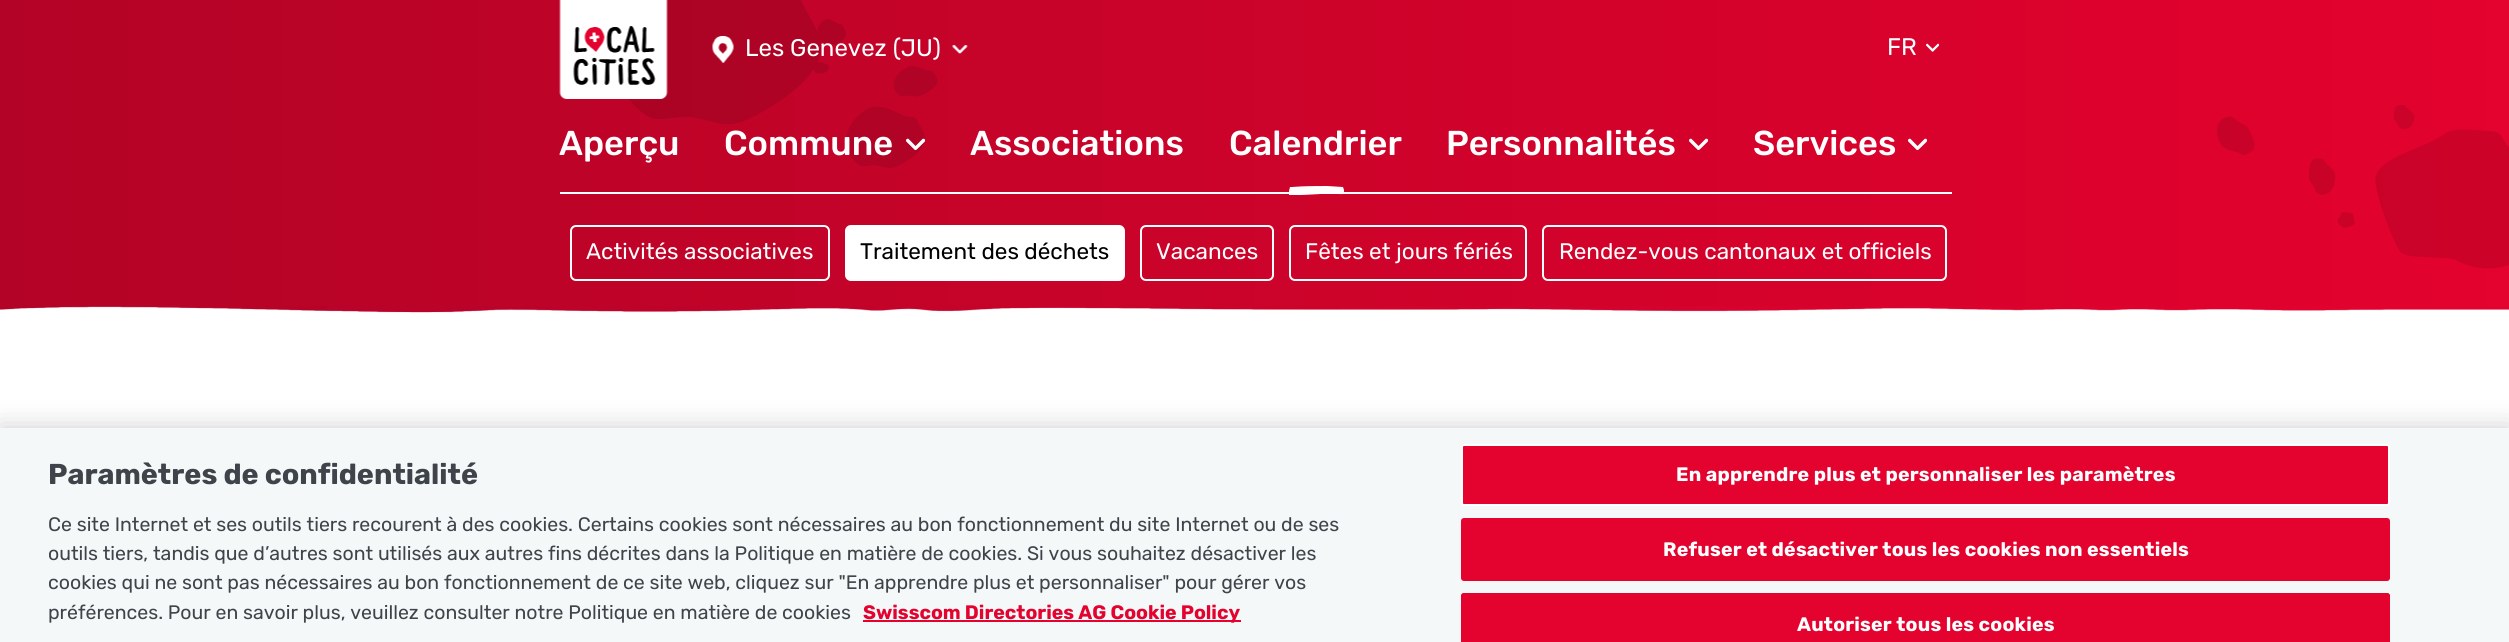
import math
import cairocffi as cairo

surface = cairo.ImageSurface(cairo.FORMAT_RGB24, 2509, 642)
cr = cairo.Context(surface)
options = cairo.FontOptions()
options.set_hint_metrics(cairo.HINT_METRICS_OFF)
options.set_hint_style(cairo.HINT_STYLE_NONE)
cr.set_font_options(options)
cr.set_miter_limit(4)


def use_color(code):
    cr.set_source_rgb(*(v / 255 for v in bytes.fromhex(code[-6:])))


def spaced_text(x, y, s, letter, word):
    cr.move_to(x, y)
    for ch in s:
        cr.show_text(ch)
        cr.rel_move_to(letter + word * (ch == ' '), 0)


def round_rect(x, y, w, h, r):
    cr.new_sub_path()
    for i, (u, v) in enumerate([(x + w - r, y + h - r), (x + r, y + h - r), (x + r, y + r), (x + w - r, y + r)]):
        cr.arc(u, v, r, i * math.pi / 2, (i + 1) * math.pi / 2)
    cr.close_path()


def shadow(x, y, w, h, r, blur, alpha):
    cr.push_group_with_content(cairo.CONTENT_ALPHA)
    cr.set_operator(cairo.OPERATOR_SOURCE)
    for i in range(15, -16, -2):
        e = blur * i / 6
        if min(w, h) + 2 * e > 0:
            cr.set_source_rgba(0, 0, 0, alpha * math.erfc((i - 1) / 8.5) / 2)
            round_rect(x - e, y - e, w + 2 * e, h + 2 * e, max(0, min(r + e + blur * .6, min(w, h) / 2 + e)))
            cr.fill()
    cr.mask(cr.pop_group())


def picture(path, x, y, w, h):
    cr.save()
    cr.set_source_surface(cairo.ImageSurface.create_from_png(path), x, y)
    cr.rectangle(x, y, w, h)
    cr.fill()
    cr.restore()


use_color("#ffffff")
cr.paint()
gradient = cairo.LinearGradient(0, 153, 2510, 153)
gradient.add_color_stop_rgba(0, 0.702, 0.012, 0.149, 1)
gradient.add_color_stop_rgba(1, 0.894, 0.008, 0.18, 1)
cr.set_source(gradient)
cr.rectangle(0, 0, 2509, 306)
cr.fill()
picture("img1.png", 629, 0, 309, 168)
picture("img2.png", 559, 0, 109, 99)
picture("img3.png", 712, 36, 22, 27)
cr.select_font_face("Rubik")
cr.set_font_size(24)
use_color("#ffffff")
cr.move_to(745, 56)
cr.show_text("Les Genevez (JU)")
picture("img4.png", 952, 45, 16, 9)
cr.move_to(1887, 55)
cr.show_text("FR")
picture("img5.png", 1926, 43, 14, 9)
cr.select_font_face("Rubik Medium")
cr.set_font_size(34.5)
cr.move_to(559, 155)
cr.show_text("Aperçu")
cr.move_to(724, 155)
cr.show_text("Commune")
picture("img6.png", 906, 138, 20, 12)
cr.move_to(970, 155)
cr.show_text("Associations")
cr.move_to(1229, 155)
cr.show_text("Calendrier")
cr.save()
cr.rectangle(1289, 186, 55, 9)
cr.clip()
cr.set_fill_rule(cairo.FILL_RULE_EVEN_ODD)
cr.new_path()
cr.move_to(1289, 195)
cr.line_to(1289, 191)
cr.line_to(1290, 187)
cr.line_to(1292, 187)
cr.curve_to(1304, 186, 1316, 186, 1327, 186)
cr.line_to(1343, 187)
cr.line_to(1344, 190)
cr.curve_to(1344, 195, 1343, 194, 1338, 194)
cr.line_to(1321, 194)
cr.curve_to(1318, 194, 1290, 196, 1289, 195)
cr.close_path()
cr.fill()
cr.restore()
cr.move_to(1446, 155)
cr.show_text("Personnalités")
picture("img7.png", 1689, 138, 20, 12)
cr.move_to(1753, 155)
cr.show_text("Services")
picture("img8.png", 1908, 138, 20, 12)
cr.rectangle(560, 192, 1392, 2)
cr.fill()
picture("img9.png", 2217, 105, 292, 164)
round_rect(571, 226, 258, 54, 5)
cr.stroke()
cr.select_font_face("Rubik")
cr.set_font_size(22.5)
cr.move_to(586, 259)
cr.show_text("Activités associatives")
round_rect(846, 226, 278, 54, 5)
cr.fill_preserve()
cr.stroke()
use_color("#000000")
cr.move_to(860, 259)
cr.show_text("Traitement des déchets")
round_rect(1141, 226, 132, 54, 5)
use_color("#ffffff")
cr.stroke()
cr.move_to(1156, 259)
cr.show_text("Vacances")
round_rect(1290, 226, 236, 54, 5)
cr.stroke()
cr.move_to(1305, 259)
cr.show_text("Fêtes et jours fériés")
round_rect(1543, 226, 403, 54, 5)
cr.stroke()
cr.move_to(1559, 259)
cr.show_text("Rendez-vous cantonaux et officiels")
picture("img10.png", 0, 306, 2509, 7)
use_color("#000000")
shadow(0, 428, 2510, 214, 0, 13.5, 0.2)
use_color("#f5f8f9")
cr.rectangle(0, 428, 2509, 214)
cr.fill()
cr.select_font_face("Rubik", cairo.FONT_SLANT_NORMAL, cairo.FONT_WEIGHT_BOLD)
cr.set_font_size(28.75)
use_color("#3e4449")
cr.move_to(48, 484)
cr.show_text("Paramètres de confidentialité")
cr.select_font_face("Rubik")
cr.set_font_size(19.5)
cr.move_to(48, 531)
cr.show_text("Ce site Internet et ses outils tiers recourent à des cookies. Certains cookies sont nécessaires au bon fonctionnement du site Internet ou de ses")
cr.move_to(48, 560)
cr.show_text("outils tiers, tandis que d’autres sont utilisés aux autres fins décrites dans la Politique en matière de cookies. Si vous souhaitez désactiver les")
cr.move_to(48, 589)
cr.show_text("cookies qui ne sont pas nécessaires au bon fonctionnement de ce site web, cliquez sur \"En apprendre plus et personnaliser\" pour gérer vos")
cr.move_to(48, 619)
cr.show_text("préférences. Pour en savoir plus, veuillez consulter notre Politique en matière de cookies")
use_color("#e4022e")
cr.rectangle(863, 620, 378, 2)
cr.fill()
cr.select_font_face("Rubik", cairo.FONT_SLANT_NORMAL, cairo.FONT_WEIGHT_BOLD)
cr.move_to(863, 619)
cr.show_text("Swisscom Directories AG Cookie Policy")
round_rect(1462, 445, 927, 60, 2)
cr.fill_preserve()
use_color("#ffffff")
cr.stroke()
spaced_text(1676, 481, "En apprendre plus et personnaliser les paramètres", 0.2, 0)
use_color("#e4022e")
round_rect(1462, 519, 927, 61, 2)
cr.fill_preserve()
cr.stroke()
use_color("#ffffff")
spaced_text(1663, 556, "Refuser et désactiver tous les cookies non essentiels", 0.2, 0)
use_color("#e4022e")
cr.new_path()
cr.move_to(1464, 593)
cr.line_to(2387, 593)
cr.curve_to(2388.5, 593, 2390, 594.5, 2390, 596)
cr.line_to(2390, 642)
cr.line_to(1461, 642)
cr.line_to(1461, 596)
cr.curve_to(1461, 594.5, 1462.5, 593, 1464, 593)
cr.close_path()
cr.fill()
round_rect(1462, 594, 927, 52, 2)
cr.stroke()
use_color("#ffffff")
spaced_text(1797, 631, "Autoriser tous les cookies", 0.2, 0)
surface.write_to_png("result.png")
